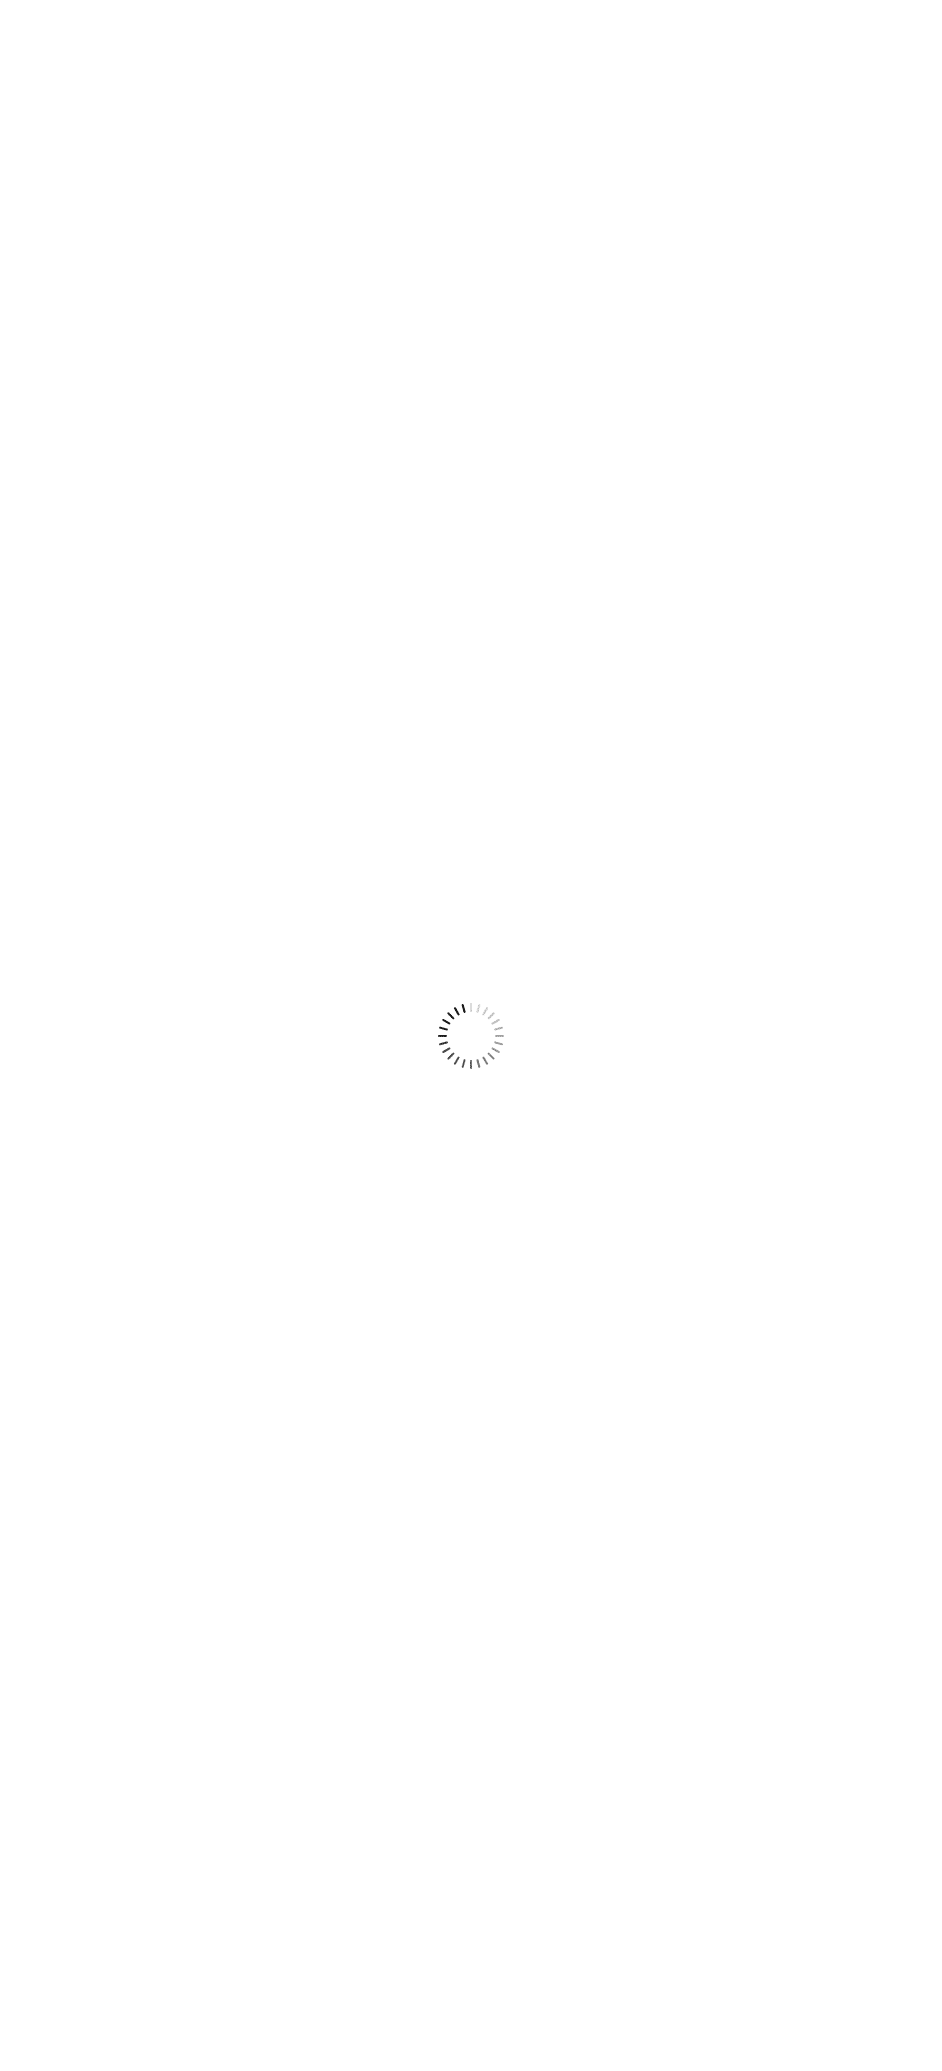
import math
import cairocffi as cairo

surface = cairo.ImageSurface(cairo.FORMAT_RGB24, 942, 2071)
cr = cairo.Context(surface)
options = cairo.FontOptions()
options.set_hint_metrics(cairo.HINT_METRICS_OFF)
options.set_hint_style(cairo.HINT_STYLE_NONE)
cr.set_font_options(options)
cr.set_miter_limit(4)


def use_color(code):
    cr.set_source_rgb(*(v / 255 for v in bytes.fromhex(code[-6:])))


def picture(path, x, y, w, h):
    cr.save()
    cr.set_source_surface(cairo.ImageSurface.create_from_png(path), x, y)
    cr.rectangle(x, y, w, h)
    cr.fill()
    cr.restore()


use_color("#ffffff")
cr.paint()
picture("img1.png", 438, 1003, 66, 66)
surface.write_to_png("result.png")
